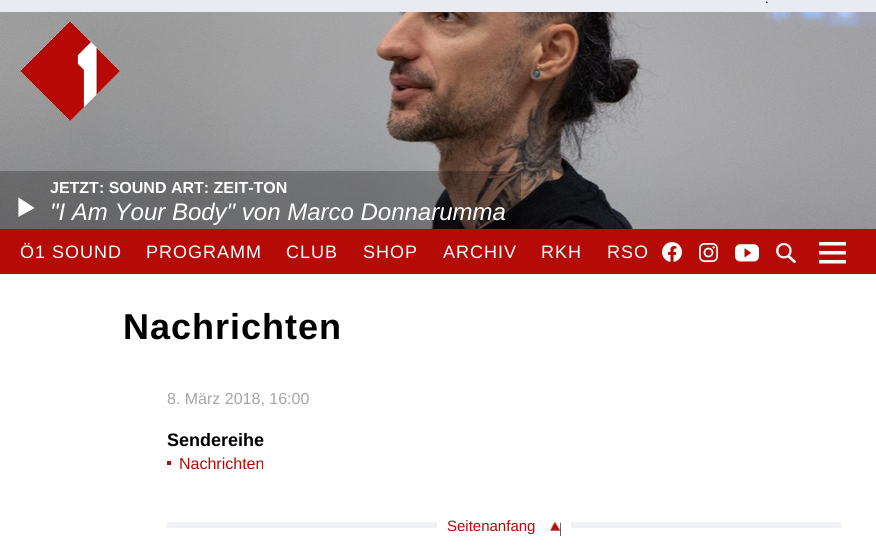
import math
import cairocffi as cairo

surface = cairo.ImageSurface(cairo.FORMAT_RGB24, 876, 550)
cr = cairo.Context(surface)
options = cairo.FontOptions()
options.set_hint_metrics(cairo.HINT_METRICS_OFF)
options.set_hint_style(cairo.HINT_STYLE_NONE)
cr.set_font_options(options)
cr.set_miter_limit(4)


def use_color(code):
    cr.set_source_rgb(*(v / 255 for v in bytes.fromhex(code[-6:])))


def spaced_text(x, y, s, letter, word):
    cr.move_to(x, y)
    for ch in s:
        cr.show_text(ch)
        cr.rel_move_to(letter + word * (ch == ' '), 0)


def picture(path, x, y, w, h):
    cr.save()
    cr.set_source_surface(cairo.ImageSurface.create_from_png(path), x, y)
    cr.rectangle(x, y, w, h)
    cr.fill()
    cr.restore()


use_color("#ffffff")
cr.paint()
use_color("#e9ebf0")
cr.rectangle(0, 0, 876, 12)
cr.fill()
cr.select_font_face("Liberation Serif")
cr.set_font_size(14)
use_color("#000000")
cr.move_to(765, 3)
cr.show_text(".")
picture("img2.png", 0, 12, 876, 217)
picture("img1.png", 20, 21, 100, 100)
cr.set_source_rgba(0, 0, 0, 0.25)
cr.rectangle(0, 171, 521, 58)
cr.fill()
cr.select_font_face("Liberation Sans", cairo.FONT_SLANT_NORMAL, cairo.FONT_WEIGHT_BOLD)
cr.set_font_size(16)
use_color("#ffffff")
cr.move_to(50, 193)
cr.show_text("JETZT: SOUND ART: ZEIT-TON")
picture("img3.png", 18, 197, 17, 20)
cr.select_font_face("Liberation Sans", cairo.FONT_SLANT_ITALIC)
cr.set_font_size(24)
cr.move_to(50, 220)
cr.show_text("\"I Am Your Body\" von Marco Donnarumma")
use_color("#b60a06")
cr.rectangle(0, 229, 876, 45)
cr.fill()
cr.select_font_face("Liberation Sans")
cr.set_font_size(18)
use_color("#ffffff")
spaced_text(20, 258, "Ö1 SOUND", 1, 0)
spaced_text(146, 258, "PROGRAMM", 1, 0)
spaced_text(286, 258, "CLUB", 1, 0)
spaced_text(363, 258, "SHOP", 1, 0)
spaced_text(443, 258, "ARCHIV", 1, 0)
spaced_text(541, 258, "RKH", 1, 0)
spaced_text(607, 258, "RSO", 1, 0)
picture("img4.png", 662, 242, 20, 20)
picture("img5.png", 699, 243, 19, 19)
picture("img6.png", 735, 244, 24, 18)
picture("img7.png", 776, 243, 20, 20)
picture("img8.png", 819, 242, 27, 22)
cr.select_font_face("Liberation Sans", cairo.FONT_SLANT_NORMAL, cairo.FONT_WEIGHT_BOLD)
cr.set_font_size(36)
use_color("#000000")
spaced_text(123, 339, "Nachrichten", 1, 0)
cr.select_font_face("Liberation Sans")
cr.set_font_size(16)
use_color("#a5a5a5")
cr.move_to(167, 404)
cr.show_text("8. März 2018, 16:00")
cr.select_font_face("Liberation Sans", cairo.FONT_SLANT_NORMAL, cairo.FONT_WEIGHT_BOLD)
cr.set_font_size(18)
use_color("#000000")
cr.move_to(167, 446)
cr.show_text("Sendereihe")
use_color("#b70e0b")
cr.rectangle(167, 461, 4, 4)
cr.fill()
cr.select_font_face("Liberation Sans")
cr.set_font_size(16)
use_color("#b60a06")
cr.move_to(179, 469)
cr.show_text("Nachrichten")
use_color("#f0f1f4")
cr.rectangle(167, 522, 674, 6)
cr.fill()
use_color("#ffffff")
cr.rectangle(447, 522, 114, 6)
cr.fill()
picture("img9.png", 550, 522, 11, 14)
cr.rectangle(442, 510, 124, 31)
cr.set_line_width(10)
cr.stroke()
cr.set_font_size(15)
use_color("#b60a06")
cr.move_to(447, 531)
cr.show_text("Seitenanfang")
surface.write_to_png("result.png")
